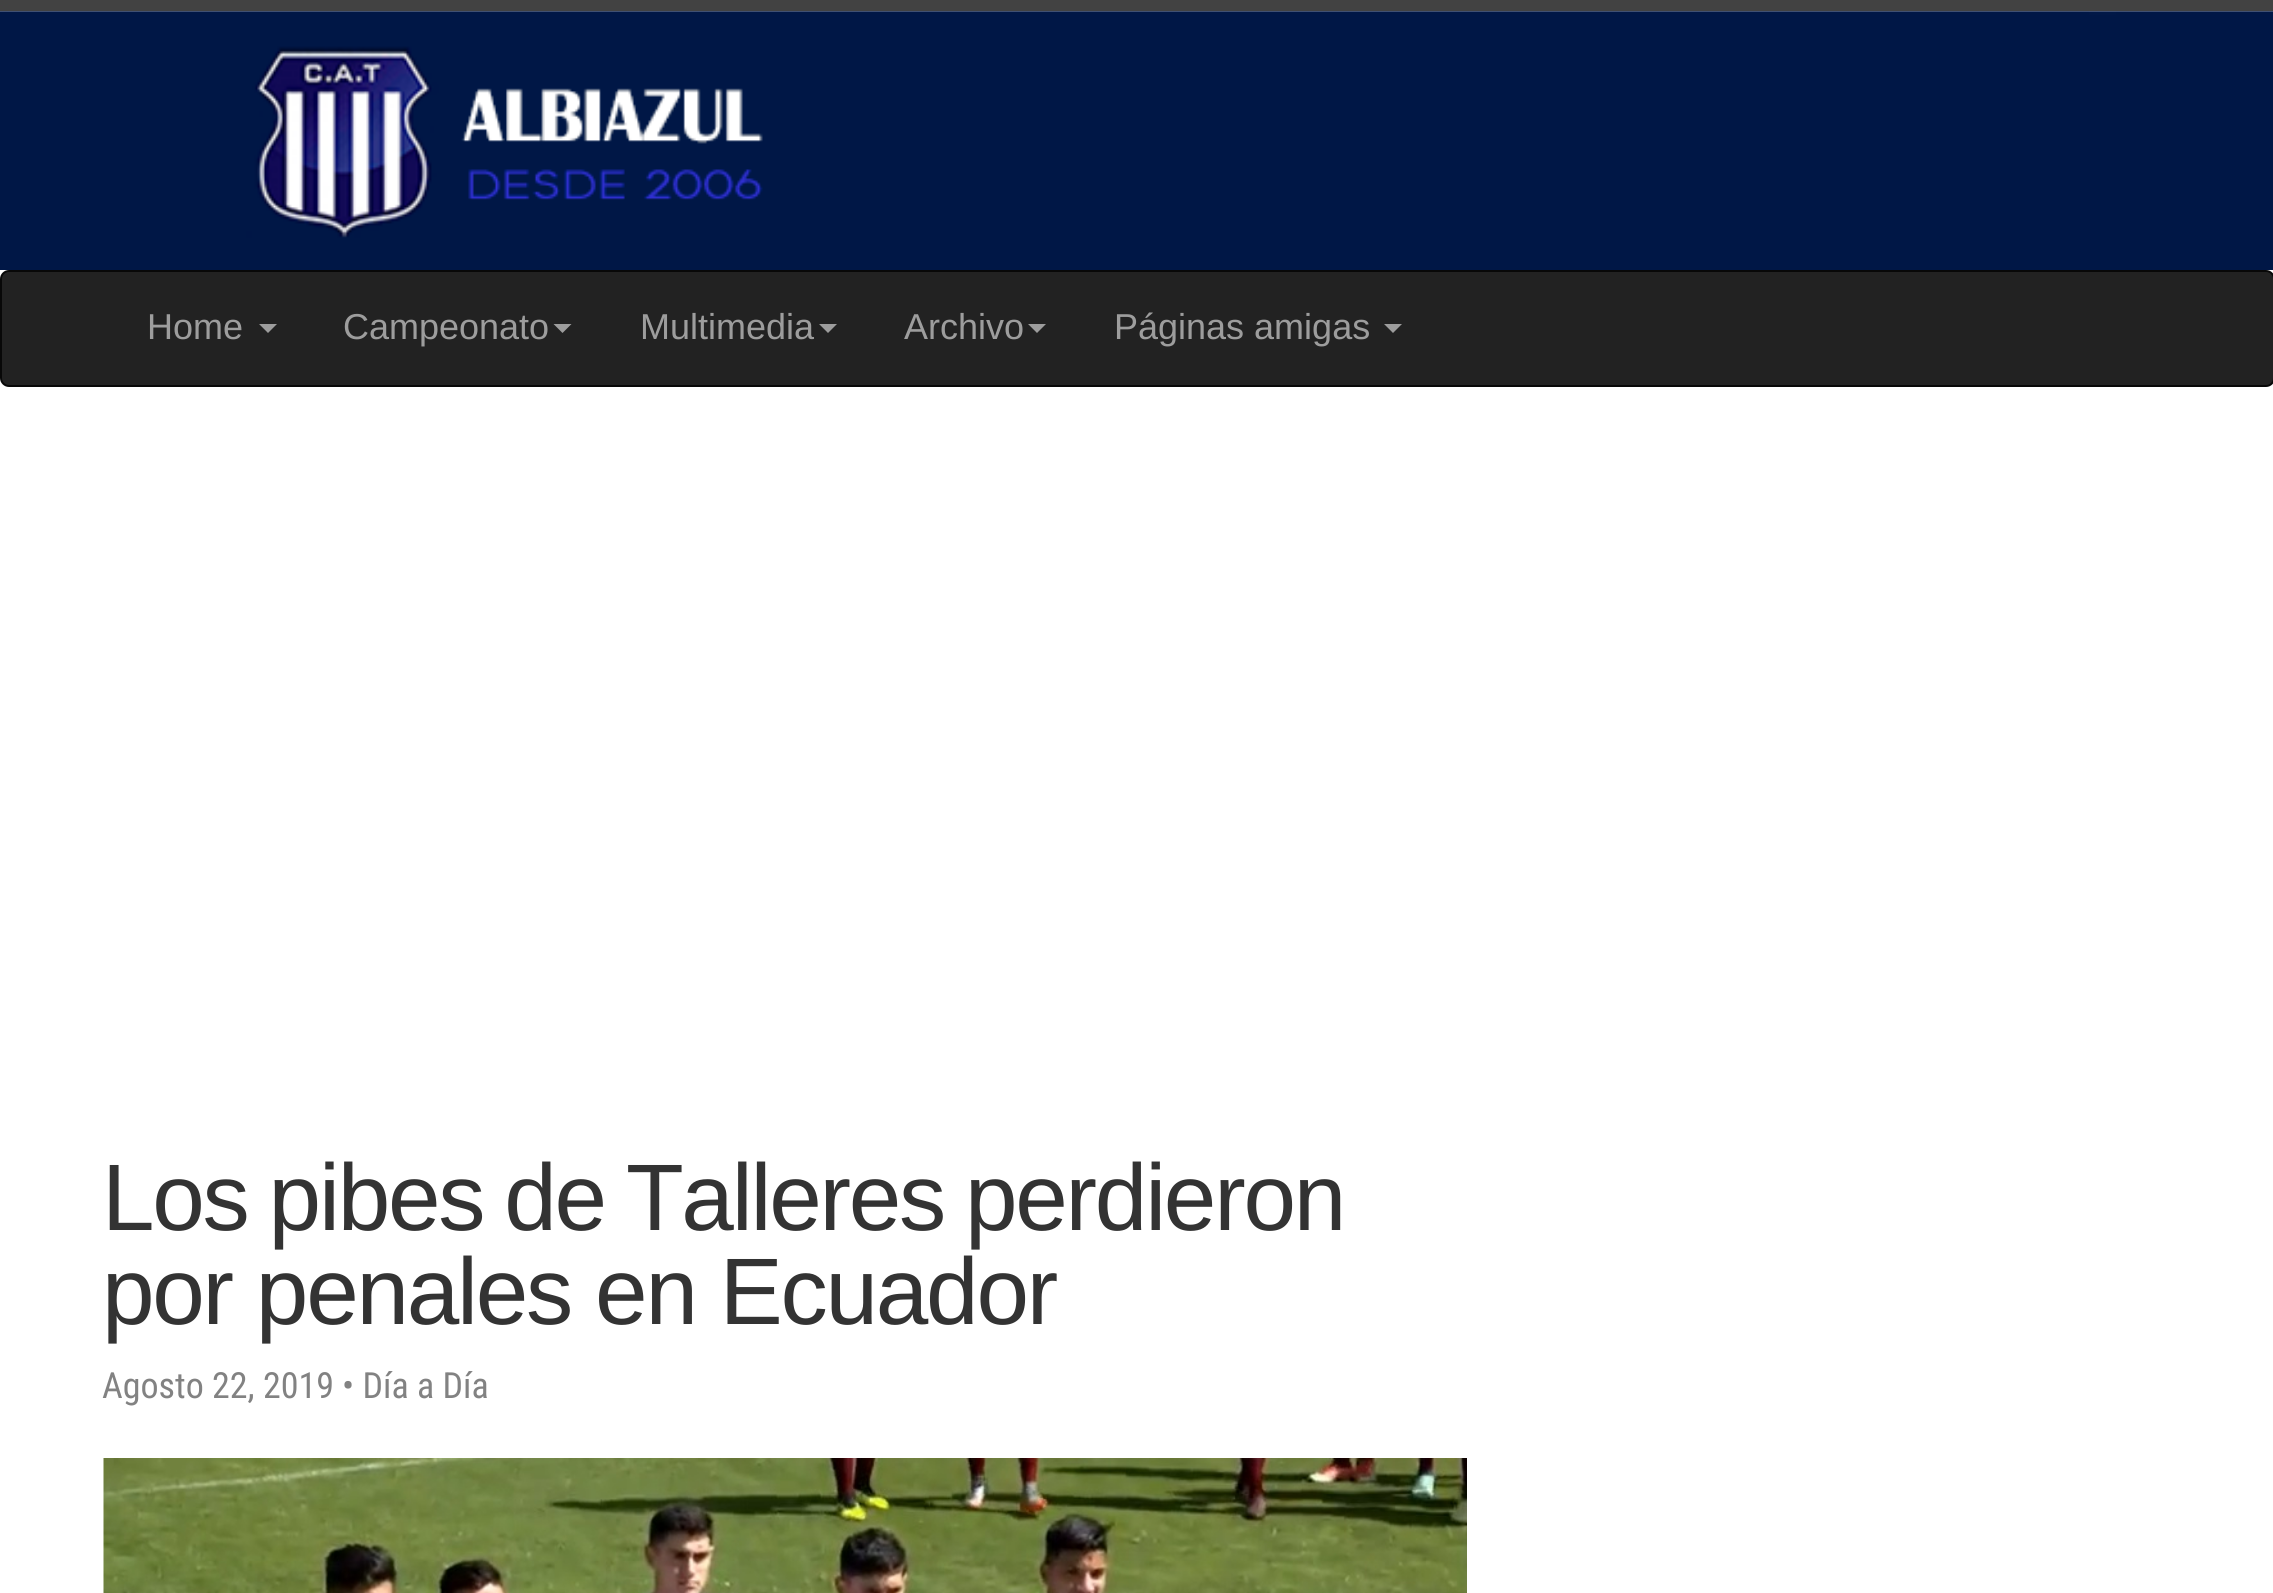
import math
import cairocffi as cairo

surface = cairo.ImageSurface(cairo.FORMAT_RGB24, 2273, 1593)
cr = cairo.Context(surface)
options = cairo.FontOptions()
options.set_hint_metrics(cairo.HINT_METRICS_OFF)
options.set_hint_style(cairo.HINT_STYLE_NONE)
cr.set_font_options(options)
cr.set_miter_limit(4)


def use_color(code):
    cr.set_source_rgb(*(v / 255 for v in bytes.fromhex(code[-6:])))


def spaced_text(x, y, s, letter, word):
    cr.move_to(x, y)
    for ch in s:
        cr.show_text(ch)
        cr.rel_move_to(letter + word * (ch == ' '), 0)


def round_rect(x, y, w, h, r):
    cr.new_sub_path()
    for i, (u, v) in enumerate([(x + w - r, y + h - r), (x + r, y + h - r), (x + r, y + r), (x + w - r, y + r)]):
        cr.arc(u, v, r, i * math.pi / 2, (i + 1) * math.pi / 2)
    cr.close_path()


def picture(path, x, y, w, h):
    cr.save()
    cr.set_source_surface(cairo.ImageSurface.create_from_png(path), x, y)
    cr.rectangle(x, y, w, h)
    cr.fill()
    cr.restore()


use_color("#ffffff")
cr.paint()
use_color("#424242")
cr.rectangle(0, 0, 2273, 11)
cr.fill()
picture("img1.png", 0, 11, 2273, 259)
use_color("#222222")
round_rect(1, 271, 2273, 115, 8)
cr.fill_preserve()
use_color("#080808")
cr.stroke()
cr.select_font_face("Liberation Sans")
cr.set_font_size(36)
use_color("#9d9d9d")
cr.move_to(147, 339)
cr.show_text("Home")
cr.new_path()
cr.move_to(259, 324)
cr.line_to(277, 324)
cr.line_to(268, 333)
cr.close_path()
cr.fill()
cr.move_to(343, 339)
cr.show_text("Campeonato")
cr.new_path()
cr.move_to(553.5, 324)
cr.line_to(571.5, 324)
cr.line_to(562.5, 333)
cr.close_path()
cr.fill()
cr.move_to(640, 339)
cr.show_text("Multimedia")
cr.new_path()
cr.move_to(819, 324)
cr.line_to(837, 324)
cr.line_to(828, 333)
cr.close_path()
cr.fill()
cr.move_to(904, 339)
cr.show_text("Archivo")
cr.new_path()
cr.move_to(1028, 324)
cr.line_to(1046, 324)
cr.line_to(1037, 333)
cr.close_path()
cr.fill()
cr.move_to(1114, 339)
cr.show_text("Páginas amigas")
cr.new_path()
cr.move_to(1384, 324)
cr.line_to(1402, 324)
cr.line_to(1393, 333)
cr.close_path()
cr.fill()
cr.set_font_size(94.5)
use_color("#333333")
spaced_text(102, 1230, "Los pibes de Talleres perdieron", -2.25, -3)
spaced_text(102, 1324, "por penales en Ecuador", -2.25, 0)
cr.select_font_face("Roboto Condensed")
cr.set_font_size(36)
use_color("#828282")
cr.move_to(102, 1398)
cr.show_text("Agosto 22, 2019")
cr.move_to(342, 1398)
cr.show_text("• Día a Día")
picture("img2.png", 103, 1458, 1364, 135)
surface.write_to_png("result.png")
